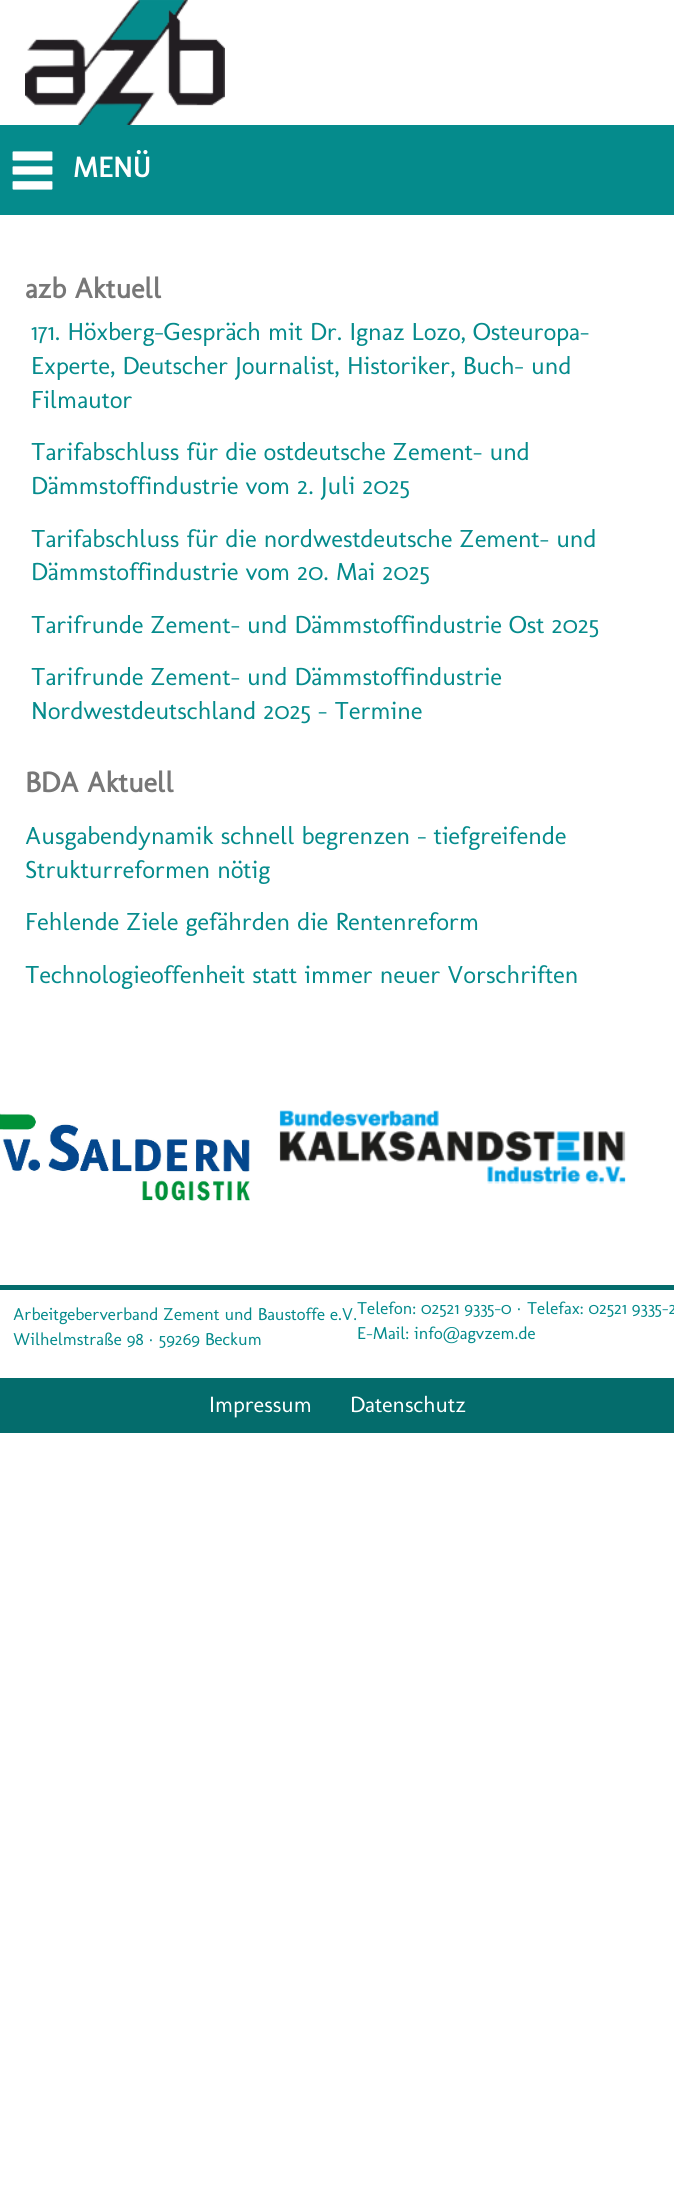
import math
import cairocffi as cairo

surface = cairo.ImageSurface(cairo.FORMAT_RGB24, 674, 2190)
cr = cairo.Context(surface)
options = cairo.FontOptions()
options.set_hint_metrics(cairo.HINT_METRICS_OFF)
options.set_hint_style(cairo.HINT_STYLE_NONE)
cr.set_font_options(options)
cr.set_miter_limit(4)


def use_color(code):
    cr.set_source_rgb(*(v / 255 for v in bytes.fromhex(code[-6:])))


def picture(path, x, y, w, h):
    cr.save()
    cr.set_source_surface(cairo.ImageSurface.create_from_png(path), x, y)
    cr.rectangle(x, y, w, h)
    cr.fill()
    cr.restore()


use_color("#ffffff")
cr.paint()
picture("img1.png", 25, 0, 200, 125)
use_color("#058b8c")
cr.rectangle(0, 125, 674, 90)
cr.fill()
picture("img2.png", 12, 151, 41, 39)
cr.select_font_face("Molengo", cairo.FONT_SLANT_NORMAL, cairo.FONT_WEIGHT_BOLD)
cr.set_font_size(28.75)
use_color("#ffffff")
cr.move_to(73, 177)
cr.show_text("MENÜ")
use_color("#777777")
cr.move_to(25, 298)
cr.show_text("azb Aktuell")
cr.select_font_face("Molengo")
cr.set_font_size(25)
use_color("#058b8c")
cr.move_to(31, 340)
cr.show_text("171. Höxberg-Gespräch mit Dr. Ignaz Lozo, Osteuropa-")
cr.move_to(31, 374)
cr.show_text("Experte, Deutscher Journalist, Historiker, Buch- und")
cr.move_to(31, 408)
cr.show_text("Filmautor")
cr.move_to(31, 460)
cr.show_text("Tarifabschluss für die ostdeutsche Zement- und")
cr.move_to(31, 494)
cr.show_text("Dämmstoffindustrie vom 2. Juli 2025")
cr.move_to(31, 547)
cr.show_text("Tarifabschluss für die nordwestdeutsche Zement- und")
cr.move_to(31, 580)
cr.show_text("Dämmstoffindustrie vom 20. Mai 2025")
cr.move_to(31, 633)
cr.show_text("Tarifrunde Zement- und Dämmstoffindustrie Ost 2025")
cr.move_to(31, 685)
cr.show_text("Tarifrunde Zement- und Dämmstoffindustrie")
cr.move_to(31, 719)
cr.show_text("Nordwestdeutschland 2025 – Termine")
cr.select_font_face("Molengo", cairo.FONT_SLANT_NORMAL, cairo.FONT_WEIGHT_BOLD)
cr.set_font_size(28.75)
use_color("#777777")
cr.move_to(25, 792)
cr.show_text("BDA Aktuell")
cr.select_font_face("Molengo")
cr.set_font_size(25)
use_color("#058b8c")
cr.move_to(25, 844)
cr.show_text("Ausgabendynamik schnell begrenzen – tiefgreifende")
cr.move_to(25, 878)
cr.show_text("Strukturreformen nötig")
cr.move_to(25, 930)
cr.show_text("Fehlende Ziele gefährden die Rentenreform")
cr.move_to(25, 983)
cr.show_text("Technologieoffenheit statt immer neuer Vorschriften")
picture("img3.png", 0, 1113, 250, 88)
picture("img4.png", 279, 1110, 347, 74)
use_color("#046c6c")
cr.rectangle(0, 1285, 674, 5)
cr.fill()
cr.rectangle(0, 1378, 674, 55)
cr.fill()
cr.set_font_size(17.5)
use_color("#058b8c")
cr.move_to(13, 1320)
cr.show_text("Arbeitgeberverband Zement und Baustoffe e.V.")
cr.move_to(13, 1345)
cr.show_text("Wilhelmstraße 98")
cr.select_font_face("Liberation Sans")
cr.move_to(148, 1345)
cr.show_text("·")
cr.select_font_face("Molengo")
cr.move_to(159, 1345)
cr.show_text("59269 Beckum")
cr.move_to(357, 1314)
cr.show_text("Telefon: 02521 9335-0")
cr.select_font_face("Liberation Sans")
cr.move_to(516, 1314)
cr.show_text("·")
cr.select_font_face("Molengo")
cr.move_to(527, 1314)
cr.show_text("Telefax: 02521 9335-2")
cr.move_to(357, 1339)
cr.show_text("E-Mail: info@agvzem.de")
cr.set_font_size(22.5)
use_color("#ffffff")
cr.move_to(209, 1412)
cr.show_text("Impressum")
cr.move_to(350, 1412)
cr.show_text("Datenschutz")
surface.write_to_png("result.png")
